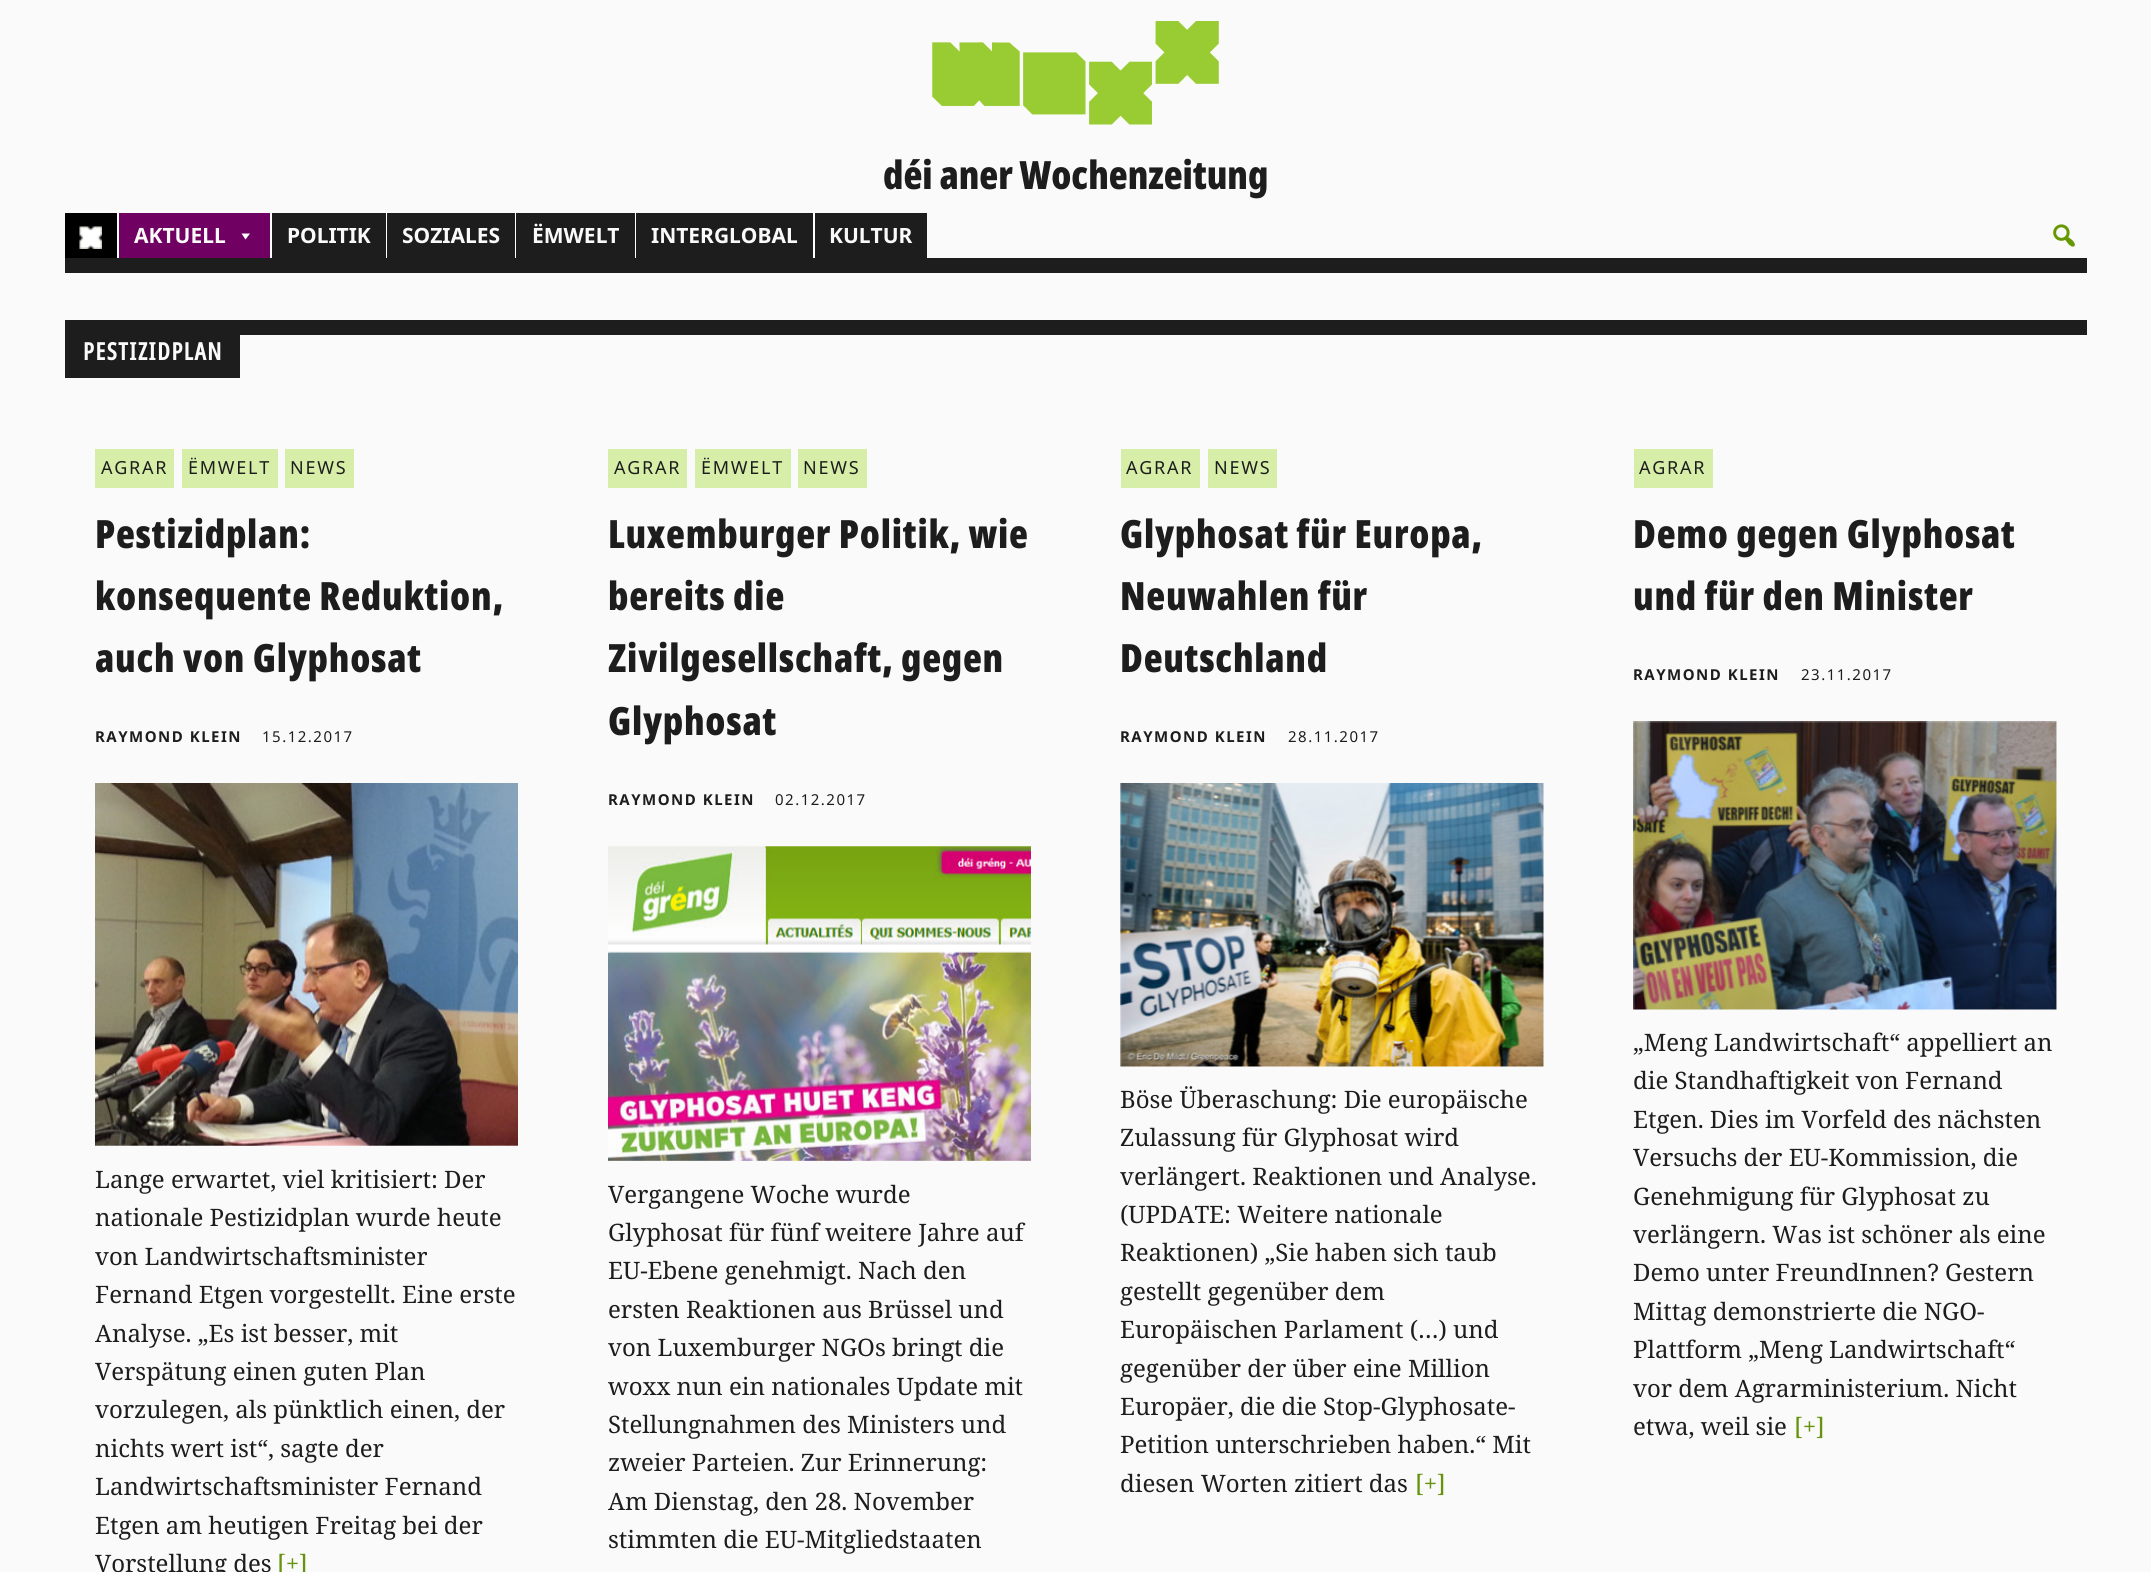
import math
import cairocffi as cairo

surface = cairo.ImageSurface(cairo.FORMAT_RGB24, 2151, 1572)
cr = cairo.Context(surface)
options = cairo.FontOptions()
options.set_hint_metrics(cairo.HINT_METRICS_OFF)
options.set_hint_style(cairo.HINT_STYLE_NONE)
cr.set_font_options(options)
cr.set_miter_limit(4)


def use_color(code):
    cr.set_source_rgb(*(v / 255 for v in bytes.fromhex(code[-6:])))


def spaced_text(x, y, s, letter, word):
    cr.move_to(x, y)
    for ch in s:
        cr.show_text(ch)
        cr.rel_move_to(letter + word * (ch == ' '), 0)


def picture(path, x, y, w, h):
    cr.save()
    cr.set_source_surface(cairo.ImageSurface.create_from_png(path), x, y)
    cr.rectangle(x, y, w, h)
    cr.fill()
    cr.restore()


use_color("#fafafa")
cr.paint()
picture("img1.png", 932, 21, 287, 104)
cr.select_font_face("Noto Sans Black")
cr.set_font_size(39)
use_color("#1d1d1d")
cr.move_to(883, 189)
cr.show_text("déi aner Wochenzeitung")
cr.rectangle(65, 258, 2022, 15)
cr.fill()
use_color("#000000")
cr.rectangle(65, 213, 52, 45)
cr.fill()
picture("img2.png", 79, 226, 23, 23)
use_color("#ffffff")
cr.rectangle(117, 213, 2, 45)
cr.fill()
use_color("#700061")
cr.rectangle(119, 213, 151, 45)
cr.fill()
cr.select_font_face("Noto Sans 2", cairo.FONT_SLANT_NORMAL, cairo.FONT_WEIGHT_BOLD)
cr.set_font_size(21)
use_color("#fafafa")
cr.move_to(134, 243)
cr.show_text("AKTUELL")
use_color("#ffffff")
cr.new_path()
cr.move_to(250, 233.5)
cr.line_to(245.5, 239.5)
cr.line_to(241.5, 233.5)
cr.close_path()
cr.fill()
cr.rectangle(270, 213, 2, 45)
cr.fill()
use_color("#1d1d1d")
cr.rectangle(272, 213, 114, 45)
cr.fill()
use_color("#fafafa")
cr.move_to(287, 243)
cr.show_text("POLITIK")
use_color("#ffffff")
cr.rectangle(386, 213, 1, 45)
cr.fill()
use_color("#1d1d1d")
cr.rectangle(387, 213, 128, 45)
cr.fill()
use_color("#fafafa")
cr.move_to(402, 243)
cr.show_text("SOZIALES")
use_color("#ffffff")
cr.rectangle(515, 213, 1, 45)
cr.fill()
use_color("#1d1d1d")
cr.rectangle(516, 213, 119, 45)
cr.fill()
use_color("#fafafa")
cr.move_to(532, 243)
cr.show_text("ËMWELT")
use_color("#ffffff")
cr.rectangle(635, 213, 1, 45)
cr.fill()
use_color("#1d1d1d")
cr.rectangle(636, 213, 177, 45)
cr.fill()
use_color("#fafafa")
cr.move_to(651, 243)
cr.show_text("INTERGLOBAL")
use_color("#ffffff")
cr.rectangle(813, 213, 2, 45)
cr.fill()
use_color("#1d1d1d")
cr.rectangle(815, 213, 112, 45)
cr.fill()
use_color("#fafafa")
cr.move_to(829, 243)
cr.show_text("KULTUR")
picture("img3.png", 2053, 224, 22, 23)
use_color("#1d1d1d")
cr.rectangle(65, 320, 2022, 15)
cr.fill()
cr.rectangle(65, 335, 175, 43)
cr.fill()
cr.select_font_face("Noto Sans", cairo.FONT_SLANT_NORMAL, cairo.FONT_WEIGHT_BOLD)
cr.set_font_size(24)
use_color("#fafafa")
spaced_text(83, 360, "PESTIZIDPLAN", 1.5, 0)
use_color("#d6eea7")
cr.rectangle(95, 449, 79, 39)
cr.fill()
cr.select_font_face("Noto Sans")
cr.set_font_size(18)
use_color("#1d1d1d")
spaced_text(101, 474, "AGRAR", 1.75, 0)
use_color("#d6eea7")
cr.rectangle(182, 449, 96, 39)
cr.fill()
use_color("#1d1d1d")
spaced_text(188, 474, "ËMWELT", 1.75, 0)
use_color("#d6eea7")
cr.rectangle(285, 449, 69, 39)
cr.fill()
use_color("#1d1d1d")
spaced_text(290, 474, "NEWS", 1.75, 0)
cr.select_font_face("Noto Sans Black")
cr.set_font_size(39)
spaced_text(95, 548, "Pestizidplan:", 0.75, 0)
spaced_text(95, 610, "konsequente Reduktion,", 0.75, 0)
spaced_text(95, 672, "auch von Glyphosat", 0.75, 0)
cr.select_font_face("Noto Sans 2", cairo.FONT_SLANT_NORMAL, cairo.FONT_WEIGHT_BOLD)
cr.set_font_size(15)
spaced_text(95, 742, "RAYMOND KLEIN", 1.5, 0)
cr.select_font_face("Noto Sans")
spaced_text(262, 742, "15.12.2017", 1.5, 0)
picture("img4.png", 95, 783, 423, 363)
cr.select_font_face("Noto Serif")
cr.set_font_size(24)
cr.move_to(95, 1188)
cr.show_text("Lange erwartet, viel kritisiert: Der")
cr.move_to(95, 1226)
cr.show_text("nationale Pestizidplan wurde heute")
cr.move_to(95, 1265)
cr.show_text("von Landwirtschaftsminister")
cr.move_to(95, 1303)
cr.show_text("Fernand Etgen vorgestellt. Eine erste")
cr.move_to(95, 1342)
cr.show_text("Analyse. „Es ist besser, mit")
cr.move_to(95, 1380)
cr.show_text("Verspätung einen guten Plan")
cr.move_to(95, 1418)
cr.show_text("vorzulegen, als pünktlich einen, der")
cr.move_to(95, 1457)
cr.show_text("nichts wert ist“, sagte der")
cr.move_to(95, 1495)
cr.show_text("Landwirtschaftsminister Fernand")
cr.move_to(95, 1534)
cr.show_text("Etgen am heutigen Freitag bei der")
cr.move_to(95, 1572)
cr.show_text("Vorstellung des")
use_color("#66930d")
cr.move_to(277, 1572)
cr.show_text("[+]")
use_color("#d6eea7")
cr.rectangle(608, 449, 79, 39)
cr.fill()
cr.select_font_face("Noto Sans")
cr.set_font_size(18)
use_color("#1d1d1d")
spaced_text(614, 474, "AGRAR", 1.75, 0)
use_color("#d6eea7")
cr.rectangle(695, 449, 96, 39)
cr.fill()
use_color("#1d1d1d")
spaced_text(701, 474, "ËMWELT", 1.75, 0)
use_color("#d6eea7")
cr.rectangle(798, 449, 69, 39)
cr.fill()
use_color("#1d1d1d")
spaced_text(803, 474, "NEWS", 1.75, 0)
cr.select_font_face("Noto Sans Black")
cr.set_font_size(39)
spaced_text(608, 548, "Luxemburger Politik, wie", 0.75, 0)
spaced_text(608, 610, "bereits die", 0.75, 0)
spaced_text(608, 672, "Zivilgesellschaft, gegen", 0.75, 0)
spaced_text(608, 735, "Glyphosat", 0.75, 0)
cr.select_font_face("Noto Sans 2", cairo.FONT_SLANT_NORMAL, cairo.FONT_WEIGHT_BOLD)
cr.set_font_size(15)
spaced_text(608, 805, "RAYMOND KLEIN", 1.5, 0)
cr.select_font_face("Noto Sans")
spaced_text(775, 805, "02.12.2017", 1.5, 0)
picture("img5.png", 608, 846, 423, 315)
cr.select_font_face("Noto Serif")
cr.set_font_size(24)
cr.move_to(608, 1203)
cr.show_text("Vergangene Woche wurde")
cr.move_to(608, 1241)
cr.show_text("Glyphosat für fünf weitere Jahre auf")
cr.move_to(608, 1279)
cr.show_text("EU-Ebene genehmigt. Nach den")
cr.move_to(608, 1318)
cr.show_text("ersten Reaktionen aus Brüssel und")
cr.move_to(608, 1356)
cr.show_text("von Luxemburger NGOs bringt die")
cr.move_to(608, 1395)
cr.show_text("woxx nun ein nationales Update mit")
cr.move_to(608, 1433)
cr.show_text("Stellungnahmen des Ministers und")
cr.move_to(608, 1471)
cr.show_text("zweier Parteien. Zur Erinnerung:")
cr.move_to(608, 1510)
cr.show_text("Am Dienstag, den 28. November")
cr.move_to(608, 1548)
cr.show_text("stimmten die EU-Mitgliedstaaten")
use_color("#d6eea7")
cr.rectangle(1121, 449, 79, 39)
cr.fill()
cr.select_font_face("Noto Sans")
cr.set_font_size(18)
use_color("#1d1d1d")
spaced_text(1126, 474, "AGRAR", 1.75, 0)
use_color("#d6eea7")
cr.rectangle(1208, 449, 69, 39)
cr.fill()
use_color("#1d1d1d")
spaced_text(1214, 474, "NEWS", 1.75, 0)
cr.select_font_face("Noto Sans Black")
cr.set_font_size(39)
spaced_text(1120, 548, "Glyphosat für Europa,", 0.75, 0)
spaced_text(1120, 610, "Neuwahlen für", 0.75, 0)
spaced_text(1120, 672, "Deutschland", 0.75, 0)
cr.select_font_face("Noto Sans 2", cairo.FONT_SLANT_NORMAL, cairo.FONT_WEIGHT_BOLD)
cr.set_font_size(15)
spaced_text(1120, 742, "RAYMOND KLEIN", 1.5, 0)
cr.select_font_face("Noto Sans")
spaced_text(1288, 742, "28.11.2017", 1.5, 0)
picture("img6.png", 1120, 783, 424, 284)
cr.select_font_face("Noto Serif")
cr.set_font_size(24)
cr.move_to(1120, 1108)
cr.show_text("Böse Überaschung: Die europäische")
cr.move_to(1120, 1146)
cr.show_text("Zulassung für Glyphosat wird")
cr.move_to(1120, 1185)
cr.show_text("verlängert. Reaktionen und Analyse.")
cr.move_to(1120, 1223)
cr.show_text("(UPDATE: Weitere nationale")
cr.move_to(1120, 1261)
cr.show_text("Reaktionen) „Sie haben sich taub")
cr.move_to(1120, 1300)
cr.show_text("gestellt gegenüber dem")
cr.move_to(1120, 1338)
cr.show_text("Europäischen Parlament (…) und")
cr.move_to(1120, 1377)
cr.show_text("gegenüber der über eine Million")
cr.move_to(1120, 1415)
cr.show_text("Europäer, die die Stop-Glyphosate-")
cr.move_to(1120, 1453)
cr.show_text("Petition unterschrieben haben.“ Mit")
cr.move_to(1120, 1492)
cr.show_text("diesen Worten zitiert das")
use_color("#66930d")
cr.move_to(1415, 1492)
cr.show_text("[+]")
use_color("#d6eea7")
cr.rectangle(1634, 449, 79, 39)
cr.fill()
cr.select_font_face("Noto Sans")
cr.set_font_size(18)
use_color("#1d1d1d")
spaced_text(1639, 474, "AGRAR", 1.75, 0)
cr.select_font_face("Noto Sans Black")
cr.set_font_size(39)
spaced_text(1633, 548, "Demo gegen Glyphosat", 0.75, 0)
spaced_text(1633, 610, "und für den Minister", 0.75, 0)
cr.select_font_face("Noto Sans 2", cairo.FONT_SLANT_NORMAL, cairo.FONT_WEIGHT_BOLD)
cr.set_font_size(15)
spaced_text(1633, 680, "RAYMOND KLEIN", 1.5, 0)
cr.select_font_face("Noto Sans")
spaced_text(1801, 680, "23.11.2017", 1.5, 0)
picture("img7.png", 1633, 721, 424, 289)
cr.select_font_face("Noto Serif")
cr.set_font_size(24)
cr.move_to(1633, 1051)
cr.show_text("„Meng Landwirtschaft“ appelliert an")
cr.move_to(1633, 1089)
cr.show_text("die Standhaftigkeit von Fernand")
cr.move_to(1633, 1128)
cr.show_text("Etgen. Dies im Vorfeld des nächsten")
cr.move_to(1633, 1166)
cr.show_text("Versuchs der EU-Kommission, die")
cr.move_to(1633, 1205)
cr.show_text("Genehmigung für Glyphosat zu")
cr.move_to(1633, 1243)
cr.show_text("verlängern. Was ist schöner als eine")
cr.move_to(1633, 1281)
cr.show_text("Demo unter FreundInnen? Gestern")
cr.move_to(1633, 1320)
cr.show_text("Mittag demonstrierte die NGO-")
cr.move_to(1633, 1358)
cr.show_text("Plattform „Meng Landwirtschaft“")
cr.move_to(1633, 1397)
cr.show_text("vor dem Agrarministerium. Nicht")
cr.move_to(1633, 1435)
cr.show_text("etwa, weil sie")
use_color("#66930d")
cr.move_to(1794, 1435)
cr.show_text("[+]")
surface.write_to_png("result.png")
